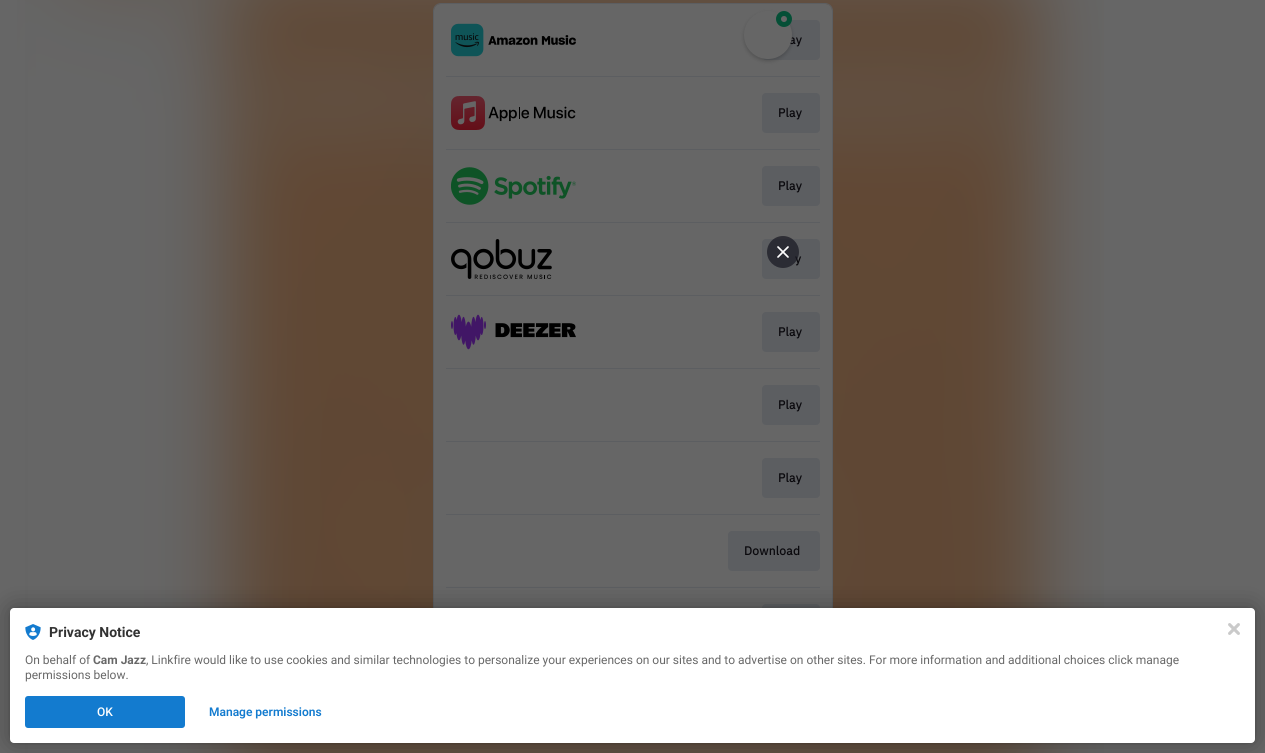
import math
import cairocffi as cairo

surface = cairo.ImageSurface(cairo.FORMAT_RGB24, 1265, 753)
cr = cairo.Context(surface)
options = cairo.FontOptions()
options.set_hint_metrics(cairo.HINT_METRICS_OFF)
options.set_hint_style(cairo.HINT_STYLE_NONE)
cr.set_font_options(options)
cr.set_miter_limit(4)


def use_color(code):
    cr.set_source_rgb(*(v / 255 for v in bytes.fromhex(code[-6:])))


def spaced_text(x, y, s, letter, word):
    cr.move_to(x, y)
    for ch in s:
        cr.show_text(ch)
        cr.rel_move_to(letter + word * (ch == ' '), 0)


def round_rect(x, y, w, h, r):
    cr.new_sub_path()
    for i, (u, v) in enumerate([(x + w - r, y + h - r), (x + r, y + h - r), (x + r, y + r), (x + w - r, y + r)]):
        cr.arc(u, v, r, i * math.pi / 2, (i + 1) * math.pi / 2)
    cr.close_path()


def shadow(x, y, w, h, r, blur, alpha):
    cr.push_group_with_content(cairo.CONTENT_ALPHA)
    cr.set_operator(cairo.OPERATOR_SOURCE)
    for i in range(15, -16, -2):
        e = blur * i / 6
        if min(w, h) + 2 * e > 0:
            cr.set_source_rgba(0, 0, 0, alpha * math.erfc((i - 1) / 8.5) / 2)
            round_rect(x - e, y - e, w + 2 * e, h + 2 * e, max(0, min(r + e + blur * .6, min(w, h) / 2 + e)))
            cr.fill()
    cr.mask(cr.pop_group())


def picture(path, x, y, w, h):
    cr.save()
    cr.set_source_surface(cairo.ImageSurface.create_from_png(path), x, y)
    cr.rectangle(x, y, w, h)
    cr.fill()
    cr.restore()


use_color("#666666")
cr.paint()
picture("img1.png", 17, 0, 1087, 753)
round_rect(433.5, 3.5, 399, 657, 7.5)
use_color("#5c5e61")
cr.set_line_width(1)
cr.stroke()
use_color("#666666")
round_rect(434, 4, 398, 656, 7)
cr.fill()
use_color("#5c5e61")
round_rect(762, 20, 58, 40, 4)
cr.fill()
use_color("#000000")
shadow(744, 13, 48, 48, 24, 2, 0.2)
cr.select_font_face("IBM Plex Sans", cairo.FONT_SLANT_NORMAL, cairo.FONT_WEIGHT_BOLD)
cr.set_font_size(12)
use_color("#0a090d")
spaced_text(789, 44, "ay", 0.25, 0)
use_color("#666666")
cr.new_path()
cr.arc(768, 35, 24, 0, 2 * math.pi)
cr.fill()
cr.arc(784, 19, 5.5, 0, 2 * math.pi)
use_color("#054f36")
cr.set_line_width(5)
cr.stroke()
use_color("#5c5e61")
round_rect(762, 239, 58, 40, 4)
cr.fill()
use_color("#0a090d")
spaced_text(795, 263, "y", 0.25, 0)
cr.set_source_rgba(0.094, 0.09, 0.129, 0.7)
cr.new_path()
cr.arc(783, 252, 16, 0, 2 * math.pi)
cr.fill()
cr.new_path()
cr.move_to(778, 247)
cr.line_to(788, 257)
cr.move_to(778, 257)
cr.line_to(788, 247)
use_color("#ffffff")
cr.set_line_width(1.7)
cr.set_line_cap(cairo.LINE_CAP_ROUND)
cr.set_line_join(cairo.LINE_JOIN_ROUND)
cr.stroke()
picture("img2.png", 451, 23, 125, 34)
use_color("#5c5e61")
cr.rectangle(446, 76, 374, 1)
cr.fill()
picture("img3.png", 451, 96, 125, 34)
round_rect(762, 93, 58, 40, 4)
cr.fill()
use_color("#0a090d")
spaced_text(778, 117, "Play", 0.25, 0)
use_color("#5c5e61")
cr.rectangle(446, 149, 374, 1)
cr.fill()
picture("img4.png", 451, 167, 125, 38)
round_rect(762, 166, 58, 40, 4)
cr.fill()
use_color("#0a090d")
spaced_text(778, 190, "Play", 0.25, 0)
use_color("#5c5e61")
cr.rectangle(446, 222, 374, 1)
cr.fill()
picture("img5.png", 451, 239, 101, 40)
cr.rectangle(446, 295, 374, 1)
cr.fill()
picture("img6.png", 451, 314, 125, 36)
round_rect(762, 312, 58, 40, 4)
cr.fill()
use_color("#0a090d")
spaced_text(778, 336, "Play", 0.25, 0)
use_color("#5c5e61")
cr.rectangle(446, 368, 374, 1)
cr.fill()
round_rect(762, 385, 58, 40, 4)
cr.fill()
use_color("#0a090d")
spaced_text(778, 409, "Play", 0.25, 0)
use_color("#5c5e61")
cr.rectangle(446, 441, 374, 1)
cr.fill()
round_rect(762, 458, 58, 40, 4)
cr.fill()
use_color("#0a090d")
spaced_text(778, 482, "Play", 0.25, 0)
use_color("#5c5e61")
cr.rectangle(446, 514, 374, 1)
cr.fill()
round_rect(728, 531, 92, 40, 4)
cr.fill()
use_color("#0a090d")
spaced_text(744, 555, "Download", 0.25, 0)
use_color("#5c5e61")
cr.rectangle(446, 587, 374, 1)
cr.fill()
round_rect(762, 604, 58, 40, 4)
cr.fill()
use_color("#000000")
shadow(10, 608, 1245, 135, 4, 2, 0.12)
shadow(10, 608, 1245, 135, 4, 12, 0.3)
use_color("#ffffff")
round_rect(10, 608, 1245, 135, 4)
cr.fill()
picture("img7.png", 25, 624, 16, 16)
cr.select_font_face("Roboto", cairo.FONT_SLANT_NORMAL, cairo.FONT_WEIGHT_BOLD)
cr.set_font_size(14)
use_color("#323232")
cr.move_to(49, 637)
cr.show_text("Privacy Notice")
cr.select_font_face("Roboto")
cr.set_font_size(12)
use_color("#686868")
cr.move_to(25, 664)
cr.show_text("On behalf of")
cr.select_font_face("Roboto", cairo.FONT_SLANT_NORMAL, cairo.FONT_WEIGHT_BOLD)
cr.move_to(93, 664)
cr.show_text("Cam Jazz")
cr.select_font_face("Roboto")
cr.move_to(146, 664)
cr.show_text(", Linkfire would like to use cookies and similar technologies to personalize your experiences on our sites and to advertise on other sites. For more information and additional choices click manage")
cr.move_to(25, 679)
cr.show_text("permissions below.")
use_color("#137bcf")
round_rect(25, 696, 160, 32, 3)
cr.fill()
cr.select_font_face("Roboto Medium")
use_color("#ffffff")
cr.move_to(97, 716)
cr.show_text("OK")
cr.select_font_face("Roboto SemiBold")
use_color("#137bcf")
cr.move_to(209, 716)
cr.show_text("Manage permissions")
picture("img8.png", 1228, 623, 12, 12)
surface.write_to_png("result.png")
